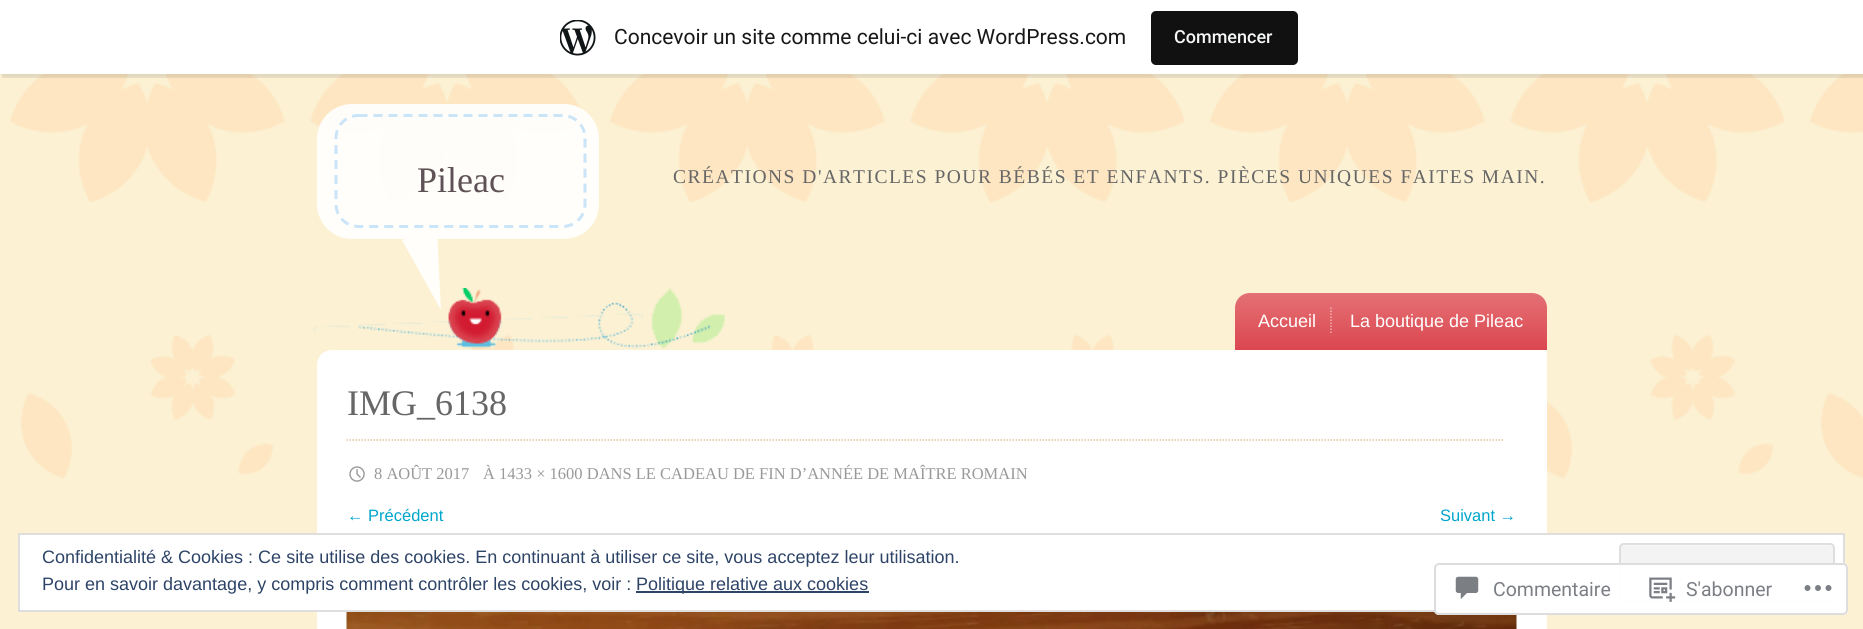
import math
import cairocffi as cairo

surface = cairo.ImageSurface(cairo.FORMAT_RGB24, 1863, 629)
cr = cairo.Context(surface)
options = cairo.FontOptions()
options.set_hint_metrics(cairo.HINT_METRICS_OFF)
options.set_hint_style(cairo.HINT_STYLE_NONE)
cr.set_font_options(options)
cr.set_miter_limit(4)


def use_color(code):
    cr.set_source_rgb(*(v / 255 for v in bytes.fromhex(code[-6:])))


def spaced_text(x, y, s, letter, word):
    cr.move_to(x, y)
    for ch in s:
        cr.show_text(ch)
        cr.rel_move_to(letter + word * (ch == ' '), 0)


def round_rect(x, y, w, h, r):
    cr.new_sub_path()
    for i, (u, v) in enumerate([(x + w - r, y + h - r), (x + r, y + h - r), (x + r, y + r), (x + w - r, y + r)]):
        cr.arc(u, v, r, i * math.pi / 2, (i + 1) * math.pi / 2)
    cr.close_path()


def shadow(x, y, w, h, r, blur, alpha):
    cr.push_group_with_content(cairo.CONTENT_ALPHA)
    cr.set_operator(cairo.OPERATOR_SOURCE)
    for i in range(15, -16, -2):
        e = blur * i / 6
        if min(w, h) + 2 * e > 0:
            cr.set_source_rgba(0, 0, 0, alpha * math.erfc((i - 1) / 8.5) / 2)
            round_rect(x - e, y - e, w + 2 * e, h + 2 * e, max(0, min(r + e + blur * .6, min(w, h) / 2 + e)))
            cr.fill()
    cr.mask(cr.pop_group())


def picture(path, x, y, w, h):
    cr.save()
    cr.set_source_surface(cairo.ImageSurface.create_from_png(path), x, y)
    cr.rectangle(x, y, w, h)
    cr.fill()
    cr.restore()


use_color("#fcf1d3")
cr.paint()
picture("img2.png", 10, 74, 1853, 405)
use_color("#000000")
shadow(0, 2, 1863, 73, 0, 1.5, 0.05)
cr.set_source_rgba(0, 0, 0, 0.08)
cr.new_path()
cr.move_to(2, 74)
cr.line_to(2, 78)
cr.line_to(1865, 78)
cr.line_to(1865, 5)
cr.line_to(1863, 5)
cr.line_to(1863, 74)
cr.close_path()
cr.fill()
use_color("#ffffff")
cr.rectangle(0, 0, 1863, 74)
cr.fill()
picture("img1.png", 560, 20, 36, 36)
cr.select_font_face("Roboto")
cr.set_font_size(21)
use_color("#171717")
cr.move_to(614, 44)
cr.show_text("Concevoir un site comme celui-ci avec WordPress.com")
use_color("#111111")
round_rect(1151, 11, 147, 54, 5)
cr.fill()
cr.select_font_face("Roboto Medium")
cr.set_font_size(18)
use_color("#f6f7f7")
cr.move_to(1174, 43)
cr.show_text("Commencer")
cr.set_source_rgba(1, 1, 1, 0.9)
round_rect(317, 104, 282, 135, 35)
cr.fill()
cr.new_path()
cr.move_to(358.5, 115.5)
cr.line_to(562.5, 115.5)
cr.curve_to(575, 115.5, 585, 125.5, 585, 138)
cr.line_to(585, 204)
cr.curve_to(585, 216.5, 575, 226.5, 562.5, 226.5)
cr.line_to(358.5, 226.5)
cr.curve_to(346, 226.5, 336, 216.5, 336, 204)
cr.line_to(336, 138)
cr.curve_to(336, 125.5, 346, 115.5, 358.5, 115.5)
cr.close_path()
use_color("#cae4f8")
cr.set_line_width(3)
cr.set_dash([9, 6])
cr.stroke()
cr.select_font_face("Liberation Serif")
cr.set_font_size(36)
use_color("#5f5256")
cr.move_to(417, 192)
cr.show_text("Pileac")
use_color("#fffefb")
cr.new_path()
cr.move_to(402, 240)
cr.line_to(437, 230)
cr.line_to(441, 310)
cr.close_path()
cr.fill()
cr.set_font_size(19.5)
use_color("#666666")
spaced_text(673, 183, "CRÉATIONS D'ARTICLES POUR BÉBÉS ET ENFANTS. PIÈCES UNIQUES FAITES MAIN.", 1.5, 0)
gradient = cairo.LinearGradient(1391, 293, 1391, 350)
gradient.add_color_stop_rgba(0, 0.894, 0.443, 0.455, 1)
gradient.add_color_stop_rgba(1, 0.859, 0.275, 0.314, 1)
cr.set_source(gradient)
cr.new_path()
cr.move_to(1250, 293)
cr.line_to(1532, 293)
cr.curve_to(1540.5, 293, 1547, 299.5, 1547, 308)
cr.line_to(1547, 350)
cr.line_to(1235, 350)
cr.line_to(1235, 308)
cr.curve_to(1235, 299.5, 1241.5, 293, 1250, 293)
cr.close_path()
cr.fill()
cr.new_path()
cr.move_to(1331, 307.5)
cr.line_to(1331, 334.5)
cr.set_source_rgba(1, 1, 1, 0.5)
cr.set_line_width(1.5)
cr.set_dash([1.5, 1.5])
cr.stroke()
cr.select_font_face("Liberation Sans")
cr.set_font_size(18)
use_color("#ffffff")
cr.move_to(1258, 327)
cr.show_text("Accueil")
cr.move_to(1350, 327)
cr.show_text("La boutique de Pileac")
picture("img3.png", 313, 288, 412, 61)
cr.new_path()
cr.move_to(332, 350)
cr.line_to(1547, 350)
cr.line_to(1547, 629)
cr.curve_to(1547, 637.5, 1540.5, 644, 1532, 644)
cr.line_to(332, 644)
cr.curve_to(323.5, 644, 317, 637.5, 317, 629)
cr.line_to(317, 365)
cr.curve_to(317, 356.5, 323.5, 350, 332, 350)
cr.close_path()
cr.fill()
cr.new_path()
cr.move_to(346.5, 440)
cr.line_to(1504.5, 440)
use_color("#dcc49a")
cr.stroke()
cr.select_font_face("Liberation Serif")
cr.set_font_size(36)
use_color("#666666")
cr.move_to(347, 415)
cr.show_text("IMG_6138")
picture("img4.png", 349, 466, 16, 16)
cr.set_font_size(16.5)
use_color("#999999")
cr.move_to(374, 479)
cr.show_text("8 AOÛT 2017")
cr.move_to(483, 479)
cr.show_text("À 1433 × 1600 DANS LE CADEAU DE FIN D’ANNÉE DE MAÎTRE ROMAIN")
cr.select_font_face("Liberation Sans")
use_color("#00a6cc")
cr.move_to(347, 521)
cr.show_text("← Précédent")
cr.move_to(1440, 521)
cr.show_text("Suivant →")
picture("img5.png", 346, 612, 1171, 17)
use_color("#ffffff")
cr.rectangle(19, 534, 1825, 77)
cr.fill_preserve()
use_color("#dedede")
cr.set_line_width(2)
cr.set_dash([])
cr.stroke()
cr.set_font_size(18)
use_color("#2e4467")
cr.move_to(42, 563)
cr.show_text("Confidentialité & Cookies : Ce site utilise des cookies. En continuant à utiliser ce site, vous acceptez leur utilisation.")
use_color("#f3f3f3")
round_rect(1619, 543, 216, 59, 5)
cr.fill()
use_color("#f9f9f9")
cr.new_path()
cr.move_to(1623, 546)
cr.line_to(1830, 546)
cr.curve_to(1832, 546, 1833, 547, 1833, 549)
cr.line_to(1833, 548)
cr.curve_to(1833, 546, 1832, 545, 1830, 545)
cr.line_to(1623, 545)
cr.curve_to(1621, 545, 1620, 546, 1620, 548)
cr.line_to(1620, 549)
cr.curve_to(1620, 547, 1621, 546, 1623, 546)
cr.close_path()
cr.fill()
round_rect(1620, 544, 214, 57, 4)
use_color("#dedede")
cr.stroke()
use_color("#2e4467")
cr.move_to(42, 590)
cr.show_text("Pour en savoir davantage, y compris comment contrôler les cookies, voir :")
cr.rectangle(636, 591, 233, 2)
cr.fill()
cr.move_to(636, 590)
cr.show_text("Politique relative aux cookies")
cr.set_source_rgba(1, 1, 1, 0.98)
round_rect(1434, 563, 414, 52, 5)
cr.fill()
round_rect(1435, 564, 412, 50, 4)
cr.set_source_rgba(0.863, 0.863, 0.871, 0.98)
cr.stroke()
picture("img6.png", 1455, 576, 24, 24)
cr.select_font_face("Roboto")
cr.set_font_size(19.5)
use_color("#7b7f85")
cr.move_to(1493, 596)
cr.show_text("Commentaire")
picture("img7.png", 1649, 577, 27, 25)
cr.move_to(1686, 596)
cr.show_text("S'abonner")
picture("img8.png", 1804, 585, 28, 6)
surface.write_to_png("result.png")
